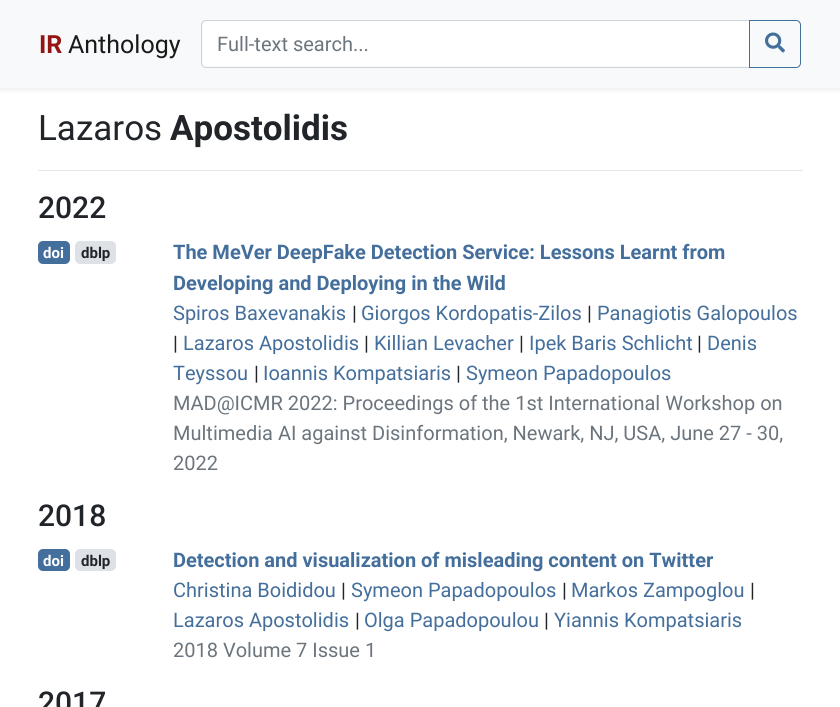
import math
import cairocffi as cairo

surface = cairo.ImageSurface(cairo.FORMAT_RGB24, 840, 707)
cr = cairo.Context(surface)
options = cairo.FontOptions()
options.set_hint_metrics(cairo.HINT_METRICS_OFF)
options.set_hint_style(cairo.HINT_STYLE_NONE)
cr.set_font_options(options)
cr.set_miter_limit(4)


def use_color(code):
    cr.set_source_rgb(*(v / 255 for v in bytes.fromhex(code[-6:])))


def round_rect(x, y, w, h, r):
    cr.new_sub_path()
    for i, (u, v) in enumerate([(x + w - r, y + h - r), (x + r, y + h - r), (x + r, y + r), (x + w - r, y + r)]):
        cr.arc(u, v, r, i * math.pi / 2, (i + 1) * math.pi / 2)
    cr.close_path()


def shadow(x, y, w, h, r, blur, alpha):
    cr.push_group_with_content(cairo.CONTENT_ALPHA)
    cr.set_operator(cairo.OPERATOR_SOURCE)
    for i in range(15, -16, -2):
        e = blur * i / 6
        if min(w, h) + 2 * e > 0:
            cr.set_source_rgba(0, 0, 0, alpha * math.erfc((i - 1) / 8.5) / 2)
            round_rect(x - e, y - e, w + 2 * e, h + 2 * e, max(0, min(r + e + blur * .6, min(w, h) / 2 + e)))
            cr.fill()
    cr.mask(cr.pop_group())


def picture(path, x, y, w, h):
    cr.save()
    cr.set_source_surface(cairo.ImageSurface.create_from_png(path), x, y)
    cr.rectangle(x, y, w, h)
    cr.fill()
    cr.restore()


use_color("#ffffff")
cr.paint()
use_color("#000000")
shadow(0, 3, 840, 87, 0, 2.5, 0.07)
use_color("#f8f9fa")
cr.rectangle(0, 0, 840, 88)
cr.fill()
cr.select_font_face("Roboto", cairo.FONT_SLANT_NORMAL, cairo.FONT_WEIGHT_BOLD)
cr.set_font_size(25)
use_color("#951515")
cr.move_to(39, 53)
cr.show_text("IR")
cr.select_font_face("Roboto")
use_color("#191919")
cr.move_to(68, 53)
cr.show_text("Anthology")
use_color("#ffffff")
cr.new_path()
cr.move_to(207, 21)
cr.line_to(749, 21)
cr.line_to(749, 66)
cr.line_to(207, 66)
cr.curve_to(205, 66, 203, 64, 203, 62)
cr.line_to(203, 25)
cr.curve_to(203, 23, 205, 21, 207, 21)
cr.close_path()
cr.fill()
cr.new_path()
cr.move_to(206, 20.5)
cr.line_to(749.5, 20.5)
cr.line_to(749.5, 67.5)
cr.line_to(206, 67.5)
cr.curve_to(203.5, 67.5, 201.5, 65.5, 201.5, 63)
cr.line_to(201.5, 25)
cr.curve_to(201.5, 22.5, 203.5, 20.5, 206, 20.5)
cr.close_path()
use_color("#ced4da")
cr.set_line_width(1)
cr.stroke()
cr.set_font_size(20)
use_color("#6c757d")
cr.move_to(217, 51)
cr.show_text("Full-text search...")
cr.new_path()
cr.move_to(749.5, 20.5)
cr.line_to(796, 20.5)
cr.curve_to(798.5, 20.5, 800.5, 22.5, 800.5, 25)
cr.line_to(800.5, 63)
cr.curve_to(800.5, 65.5, 798.5, 67.5, 796, 67.5)
cr.line_to(749.5, 67.5)
cr.close_path()
use_color("#446e9b")
cr.stroke()
picture("img1.png", 765, 32, 20, 21)
cr.set_font_size(35)
use_color("#212529")
cr.move_to(38, 140)
cr.show_text("Lazaros")
cr.select_font_face("Roboto", cairo.FONT_SLANT_NORMAL, cairo.FONT_WEIGHT_BOLD)
cr.move_to(170, 140)
cr.show_text("Apostolidis")
use_color("#e6e6e6")
cr.rectangle(38, 170, 765, 1)
cr.fill()
cr.select_font_face("Roboto Medium")
cr.set_font_size(30)
use_color("#212529")
cr.move_to(38, 218)
cr.show_text("2022")
use_color("#446e9b")
round_rect(38, 241, 32, 23, 5)
cr.fill()
cr.select_font_face("Roboto", cairo.FONT_SLANT_NORMAL, cairo.FONT_WEIGHT_BOLD)
cr.set_font_size(15)
use_color("#ffffff")
cr.move_to(43, 258)
cr.show_text("doi")
use_color("#dee2e6")
round_rect(75, 241, 41, 23, 5)
cr.fill()
use_color("#212529")
cr.move_to(81, 258)
cr.show_text("dblp")
cr.set_font_size(20)
use_color("#446e9b")
cr.move_to(173, 259)
cr.show_text("The MeVer DeepFake Detection Service: Lessons Learnt from")
cr.move_to(173, 290)
cr.show_text("Developing and Deploying in the Wild")
cr.select_font_face("Roboto")
cr.move_to(173, 320)
cr.show_text("Spiros Baxevanakis")
use_color("#212529")
cr.move_to(352, 320)
cr.show_text("|")
use_color("#446e9b")
cr.move_to(361, 320)
cr.show_text("Giorgos Kordopatis-Zilos")
use_color("#212529")
cr.move_to(587, 320)
cr.show_text("|")
use_color("#446e9b")
cr.move_to(597, 320)
cr.show_text("Panagiotis Galopoulos")
use_color("#212529")
cr.move_to(173, 350)
cr.show_text("|")
use_color("#446e9b")
cr.move_to(183, 350)
cr.show_text("Lazaros Apostolidis")
use_color("#212529")
cr.move_to(364, 350)
cr.show_text("|")
use_color("#446e9b")
cr.move_to(374, 350)
cr.show_text("Killian Levacher")
use_color("#212529")
cr.move_to(519, 350)
cr.show_text("|")
use_color("#446e9b")
cr.move_to(529, 350)
cr.show_text("Ipek Baris Schlicht")
use_color("#212529")
cr.move_to(697, 350)
cr.show_text("|")
use_color("#446e9b")
cr.move_to(707, 350)
cr.show_text("Denis")
cr.move_to(173, 380)
cr.show_text("Teyssou")
use_color("#212529")
cr.move_to(254, 380)
cr.show_text("|")
use_color("#446e9b")
cr.move_to(263, 380)
cr.show_text("Ioannis Kompatsiaris")
use_color("#212529")
cr.move_to(456, 380)
cr.show_text("|")
use_color("#446e9b")
cr.move_to(466, 380)
cr.show_text("Symeon Papadopoulos")
use_color("#6c757d")
cr.move_to(173, 410)
cr.show_text("MAD@ICMR 2022: Proceedings of the 1st International Workshop on")
cr.move_to(173, 440)
cr.show_text("Multimedia AI against Disinformation, Newark, NJ, USA, June 27 - 30,")
cr.move_to(173, 470)
cr.show_text("2022")
cr.select_font_face("Roboto Medium")
cr.set_font_size(30)
use_color("#212529")
cr.move_to(38, 526)
cr.show_text("2018")
use_color("#446e9b")
round_rect(38, 549, 32, 22, 5)
cr.fill()
cr.select_font_face("Roboto", cairo.FONT_SLANT_NORMAL, cairo.FONT_WEIGHT_BOLD)
cr.set_font_size(15)
use_color("#ffffff")
cr.move_to(43, 566)
cr.show_text("doi")
use_color("#dee2e6")
round_rect(75, 549, 41, 22, 5)
cr.fill()
use_color("#212529")
cr.move_to(81, 566)
cr.show_text("dblp")
cr.set_font_size(20)
use_color("#446e9b")
cr.move_to(173, 567)
cr.show_text("Detection and visualization of misleading content on Twitter")
cr.select_font_face("Roboto")
cr.move_to(173, 597)
cr.show_text("Christina Boididou")
use_color("#212529")
cr.move_to(341, 597)
cr.show_text("|")
use_color("#446e9b")
cr.move_to(351, 597)
cr.show_text("Symeon Papadopoulos")
use_color("#212529")
cr.move_to(562, 597)
cr.show_text("|")
use_color("#446e9b")
cr.move_to(571, 597)
cr.show_text("Markos Zampoglou")
use_color("#212529")
cr.move_to(750, 597)
cr.show_text("|")
use_color("#446e9b")
cr.move_to(173, 627)
cr.show_text("Lazaros Apostolidis")
use_color("#212529")
cr.move_to(355, 627)
cr.show_text("|")
use_color("#446e9b")
cr.move_to(364, 627)
cr.show_text("Olga Papadopoulou")
use_color("#212529")
cr.move_to(544, 627)
cr.show_text("|")
use_color("#446e9b")
cr.move_to(554, 627)
cr.show_text("Yiannis Kompatsiaris")
use_color("#6c757d")
cr.move_to(173, 657)
cr.show_text("2018 Volume 7 Issue 1")
cr.select_font_face("Roboto Medium")
cr.set_font_size(30)
use_color("#212529")
cr.move_to(38, 713)
cr.show_text("2017")
surface.write_to_png("result.png")
